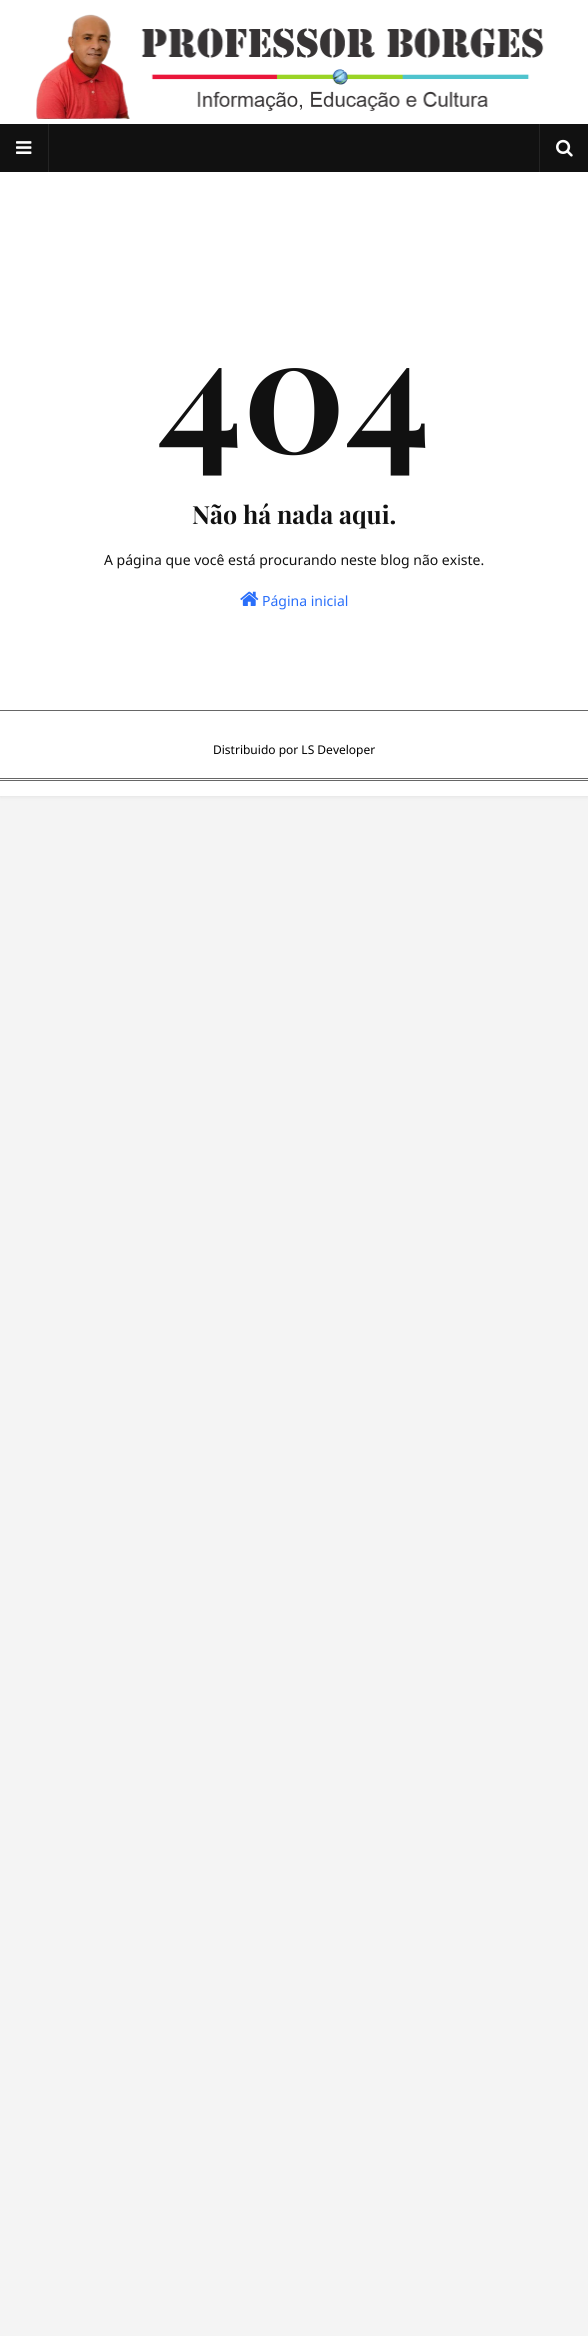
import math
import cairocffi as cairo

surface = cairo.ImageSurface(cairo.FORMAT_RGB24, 588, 2336)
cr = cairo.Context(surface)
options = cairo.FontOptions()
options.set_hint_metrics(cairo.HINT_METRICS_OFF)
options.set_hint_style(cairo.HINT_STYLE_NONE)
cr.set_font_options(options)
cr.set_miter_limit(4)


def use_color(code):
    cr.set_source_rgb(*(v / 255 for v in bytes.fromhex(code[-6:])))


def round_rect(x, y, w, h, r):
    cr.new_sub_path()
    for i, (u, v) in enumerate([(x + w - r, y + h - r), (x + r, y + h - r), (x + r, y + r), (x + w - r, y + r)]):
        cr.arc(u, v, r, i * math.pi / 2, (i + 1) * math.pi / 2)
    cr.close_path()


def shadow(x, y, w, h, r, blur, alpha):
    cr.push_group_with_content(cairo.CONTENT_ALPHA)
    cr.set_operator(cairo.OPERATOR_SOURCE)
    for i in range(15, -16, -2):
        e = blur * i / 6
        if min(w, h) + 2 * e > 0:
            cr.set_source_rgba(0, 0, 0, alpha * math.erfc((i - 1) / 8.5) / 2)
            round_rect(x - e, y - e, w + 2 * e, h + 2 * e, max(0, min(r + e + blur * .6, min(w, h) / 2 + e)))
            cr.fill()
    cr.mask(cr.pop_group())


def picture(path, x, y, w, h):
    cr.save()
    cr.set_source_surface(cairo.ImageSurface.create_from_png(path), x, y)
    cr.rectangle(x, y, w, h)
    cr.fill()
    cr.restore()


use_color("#f4f4f4")
cr.paint()
use_color("#000000")
shadow(0, 0, 588, 796, 0, 2.5, 0.1)
use_color("#ffffff")
cr.rectangle(0, 0, 588, 796)
cr.fill()
picture("img1.png", 36, 14, 508, 105)
use_color("#111111")
cr.rectangle(0, 124, 588, 48)
cr.fill()
use_color("#242424")
cr.rectangle(48, 124, 1, 48)
cr.fill()
picture("img2.png", 16, 141, 16, 13)
cr.rectangle(539, 124, 1, 48)
cr.fill()
picture("img3.png", 556, 139, 17, 18)
cr.select_font_face("Playfair Display", cairo.FONT_SLANT_NORMAL, cairo.FONT_WEIGHT_BOLD)
cr.set_font_size(160)
use_color("#111111")
cr.move_to(158, 453)
cr.show_text("404")
cr.set_font_size(25)
cr.move_to(192, 524)
cr.show_text("Não há nada aqui.")
cr.select_font_face("Noto Sans")
cr.set_font_size(14)
cr.move_to(104, 565)
cr.show_text("A página que você está procurando neste blog não existe.")
picture("img4.png", 240, 591, 19, 15)
use_color("#2a6ffa")
cr.move_to(262, 606)
cr.show_text("Página inicial")
use_color("#666666")
cr.rectangle(0, 710, 588, 1)
cr.fill()
cr.rectangle(0, 778, 588, 1)
cr.fill()
cr.rectangle(0, 780, 588, 1)
cr.fill()
cr.set_font_size(12)
use_color("#000000")
cr.move_to(213, 754)
cr.show_text("Distribuido por LS Developer")
surface.write_to_png("result.png")
